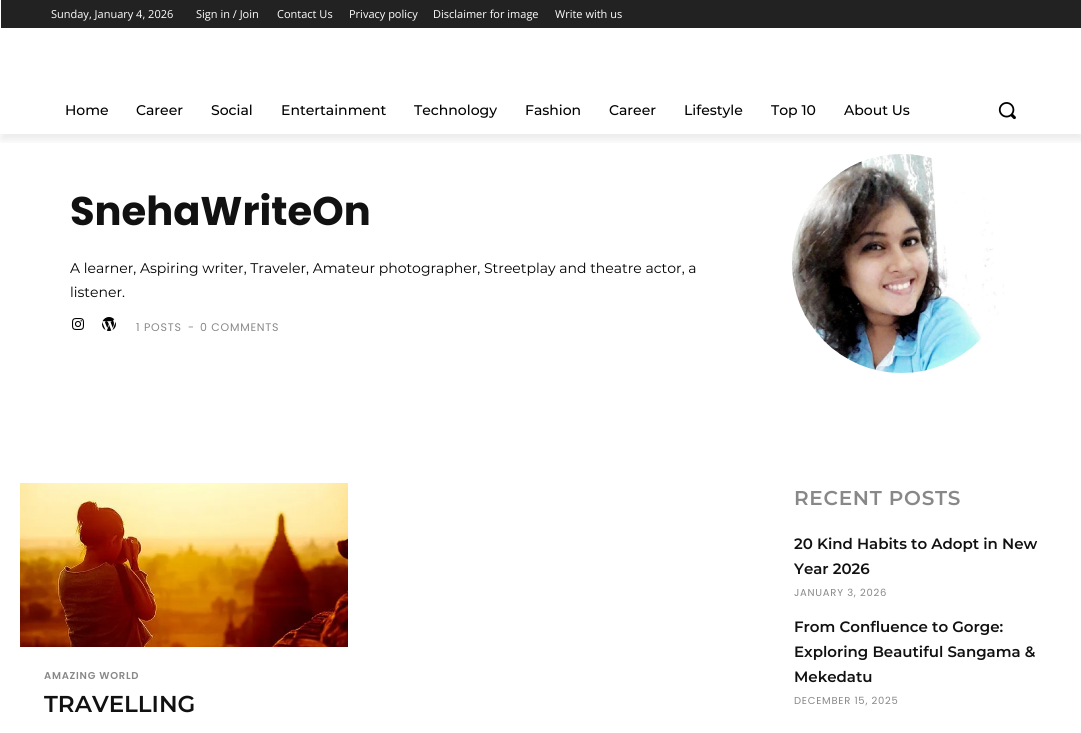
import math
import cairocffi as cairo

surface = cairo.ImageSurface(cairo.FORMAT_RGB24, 1081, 733)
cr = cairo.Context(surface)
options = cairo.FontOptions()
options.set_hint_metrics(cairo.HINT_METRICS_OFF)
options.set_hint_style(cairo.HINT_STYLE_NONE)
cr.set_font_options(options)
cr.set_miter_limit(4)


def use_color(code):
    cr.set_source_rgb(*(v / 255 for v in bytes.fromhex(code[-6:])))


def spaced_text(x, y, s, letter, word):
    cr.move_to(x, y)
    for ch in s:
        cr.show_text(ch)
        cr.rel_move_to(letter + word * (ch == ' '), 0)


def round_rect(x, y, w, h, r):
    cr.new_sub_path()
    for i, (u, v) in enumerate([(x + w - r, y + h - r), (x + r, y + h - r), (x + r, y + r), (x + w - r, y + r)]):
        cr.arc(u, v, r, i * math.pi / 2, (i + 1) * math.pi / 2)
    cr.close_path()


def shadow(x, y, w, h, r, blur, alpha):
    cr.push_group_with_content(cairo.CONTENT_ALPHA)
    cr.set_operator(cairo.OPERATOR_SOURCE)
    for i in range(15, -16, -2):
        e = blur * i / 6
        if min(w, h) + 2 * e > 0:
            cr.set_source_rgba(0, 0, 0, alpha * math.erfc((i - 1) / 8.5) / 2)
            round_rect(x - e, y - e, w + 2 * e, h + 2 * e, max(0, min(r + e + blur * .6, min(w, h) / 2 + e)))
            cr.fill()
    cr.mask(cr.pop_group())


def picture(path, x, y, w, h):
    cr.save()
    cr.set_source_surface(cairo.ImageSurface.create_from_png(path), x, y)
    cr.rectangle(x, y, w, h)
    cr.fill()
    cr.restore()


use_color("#ffffff")
cr.paint()
use_color("#222222")
cr.rectangle(1, 0, 1080, 28)
cr.fill()
cr.save()
cr.rectangle(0, 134, 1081, 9)
cr.clip()
use_color("#000000")
shadow(1, 6, 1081, 134, 0, 4, 0.08)
cr.restore()
cr.select_font_face("Open Sans")
cr.set_font_size(11)
use_color("#ffffff")
cr.move_to(51, 18)
cr.show_text("Sunday, January 4, 2026")
cr.move_to(196, 18)
cr.show_text("Sign in / Join")
cr.move_to(277, 18)
cr.show_text("Contact Us")
cr.move_to(349, 18)
cr.show_text("Privacy policy")
cr.move_to(433, 18)
cr.show_text("Disclaimer for image")
cr.move_to(555, 18)
cr.show_text("Write with us")
cr.select_font_face("Montserrat Medium")
cr.set_font_size(14)
use_color("#000000")
cr.move_to(65, 115)
cr.show_text("Home")
cr.move_to(136, 115)
cr.show_text("Career")
cr.move_to(211, 115)
cr.show_text("Social")
cr.move_to(281, 115)
cr.show_text("Entertainment")
cr.move_to(414, 115)
cr.show_text("Technology")
cr.move_to(525, 115)
cr.show_text("Fashion")
cr.move_to(609, 115)
cr.show_text("Career")
cr.move_to(684, 115)
cr.show_text("Lifestyle")
cr.move_to(771, 115)
cr.show_text("Top 10")
cr.move_to(844, 115)
cr.show_text("About Us")
picture("img1.png", 998, 102, 18, 18)
cr.select_font_face("Poppins", cairo.FONT_SLANT_NORMAL, cairo.FONT_WEIGHT_BOLD)
cr.set_font_size(40)
use_color("#111111")
cr.move_to(70, 225)
cr.show_text("SnehaWriteOn")
cr.select_font_face("Montserrat")
cr.set_font_size(14)
use_color("#000000")
cr.move_to(70, 273)
cr.show_text("A learner, Aspiring writer, Traveler, Amateur photographer, Streetplay and theatre actor, a")
cr.move_to(70, 297)
cr.show_text("listener.")
picture("img2.png", 72, 318, 12, 12)
picture("img3.png", 102, 317, 14, 14)
cr.select_font_face("Poppins")
cr.set_font_size(11)
use_color("#888888")
spaced_text(136, 331, "1 POSTS", 0.75, 0)
spaced_text(188, 331, "-", 0.75, 0)
spaced_text(200, 331, "0 COMMENTS", 0.75, 0)
picture("img4.png", 792, 154, 212, 219)
picture("img5.png", 20, 483, 328, 164)
cr.select_font_face("Poppins SemiBold")
cr.set_font_size(10)
spaced_text(44, 679, "AMAZING WORLD", 0.75, 0)
cr.select_font_face("Montserrat SemiBold")
cr.set_font_size(23)
use_color("#111111")
cr.move_to(44, 712)
cr.show_text("TRAVELLING")
cr.set_font_size(20)
use_color("#888888")
spaced_text(794, 505, "RECENT POSTS", 0.75, 0)
cr.set_font_size(15)
use_color("#111111")
cr.move_to(794, 549)
cr.show_text("20 Kind Habits to Adopt in New")
cr.move_to(794, 574)
cr.show_text("Year 2026")
cr.select_font_face("Poppins")
cr.set_font_size(10)
use_color("#888888")
spaced_text(794, 596, "JANUARY 3, 2026", 0.75, 0)
cr.select_font_face("Montserrat SemiBold")
cr.set_font_size(15)
use_color("#111111")
cr.move_to(794, 632)
cr.show_text("From Confluence to Gorge:")
cr.move_to(794, 657)
cr.show_text("Exploring Beautiful Sangama &")
cr.move_to(794, 682)
cr.show_text("Mekedatu")
cr.select_font_face("Poppins")
cr.set_font_size(10)
use_color("#888888")
spaced_text(794, 704, "DECEMBER 15, 2025", 0.75, 0)
surface.write_to_png("result.png")
